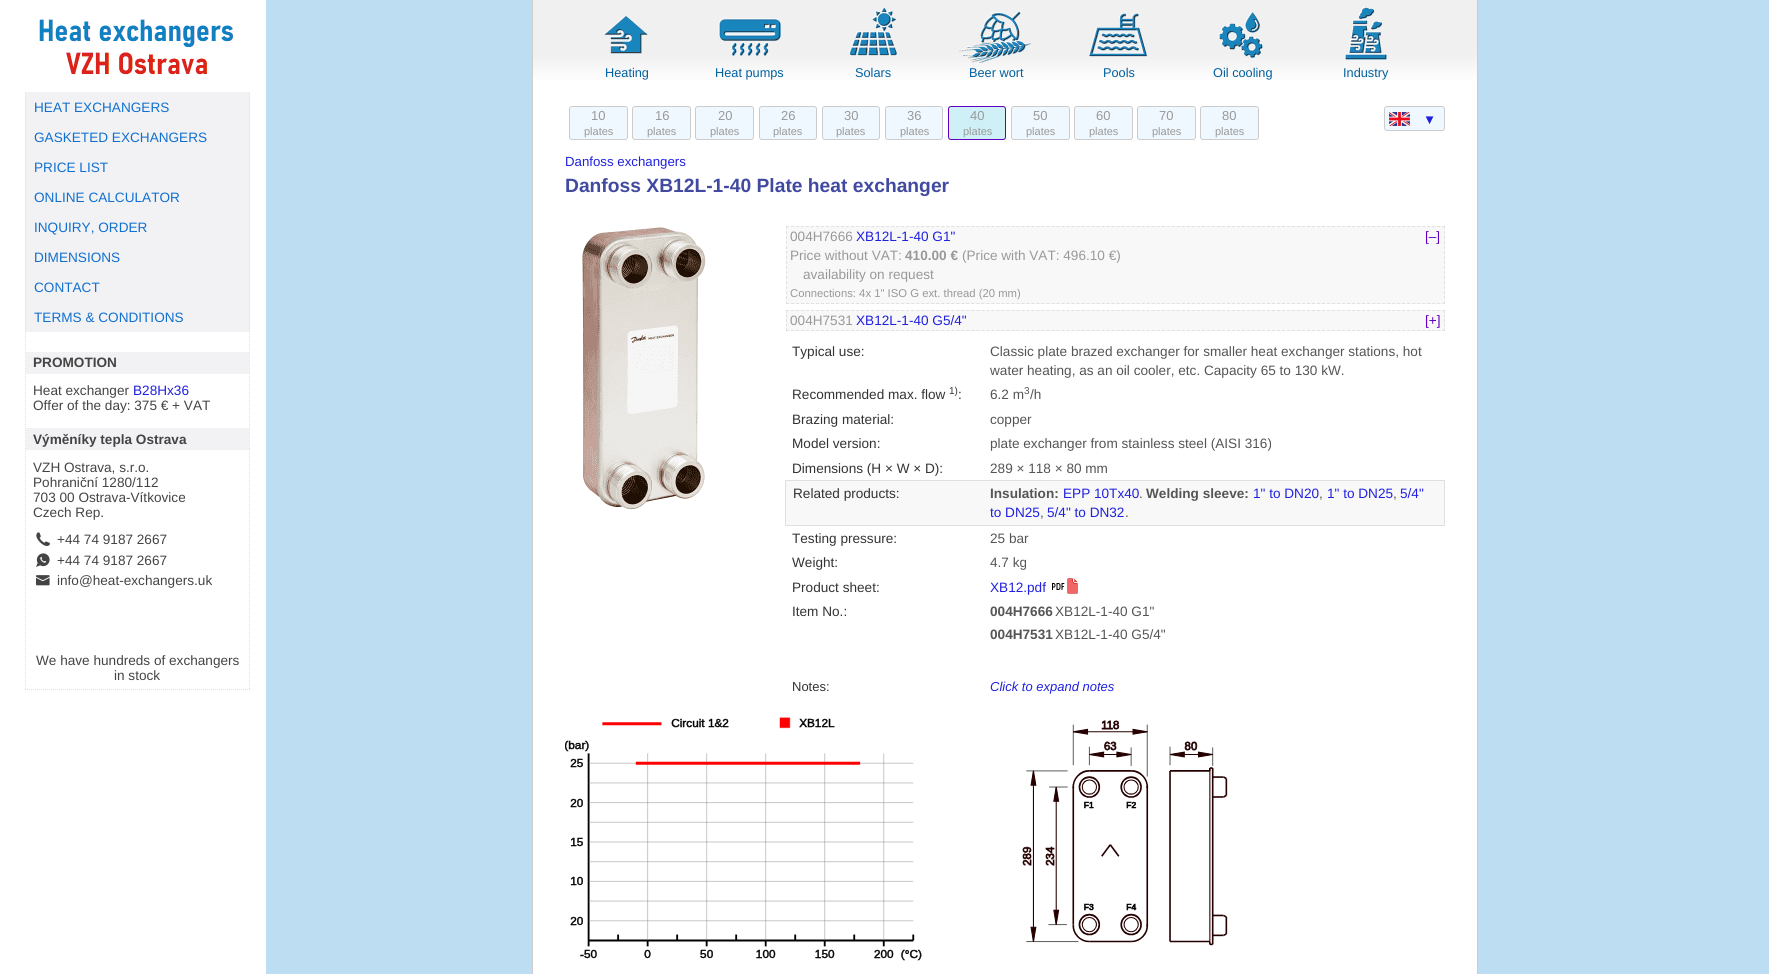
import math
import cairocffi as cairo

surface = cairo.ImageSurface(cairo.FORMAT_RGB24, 1769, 974)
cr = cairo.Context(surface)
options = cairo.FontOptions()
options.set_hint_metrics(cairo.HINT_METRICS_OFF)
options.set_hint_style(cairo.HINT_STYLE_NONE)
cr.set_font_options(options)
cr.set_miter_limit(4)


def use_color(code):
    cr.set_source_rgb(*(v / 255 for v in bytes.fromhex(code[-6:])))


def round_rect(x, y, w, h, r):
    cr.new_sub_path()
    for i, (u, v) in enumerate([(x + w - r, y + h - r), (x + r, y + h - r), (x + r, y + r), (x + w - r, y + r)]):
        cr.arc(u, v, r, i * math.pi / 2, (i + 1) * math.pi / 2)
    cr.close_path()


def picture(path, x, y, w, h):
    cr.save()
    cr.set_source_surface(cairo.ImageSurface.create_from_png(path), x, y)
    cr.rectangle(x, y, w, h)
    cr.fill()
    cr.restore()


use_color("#bddef2")
cr.paint()
use_color("#ffffff")
cr.rectangle(0, 0, 266, 974)
cr.fill()
picture("img1.png", 39, 19, 194, 56)
use_color("#f2f2f4")
cr.rectangle(25, 92, 225, 240)
cr.fill()
cr.new_path()
cr.move_to(249.5, 92)
cr.line_to(249.5, 332)
use_color("#e0e0e0")
cr.set_line_width(1)
cr.set_dash([1, 1])
cr.stroke()
cr.new_path()
cr.move_to(25.5, 92)
cr.line_to(25.5, 332)
cr.stroke()
cr.select_font_face("Liberation Sans")
cr.set_font_size(13.6)
use_color("#1070d0")
cr.move_to(34, 112)
cr.show_text("HEAT EXCHANGERS")
cr.move_to(34, 142)
cr.show_text("GASKETED EXCHANGERS")
cr.move_to(34, 172)
cr.show_text("PRICE LIST")
cr.move_to(34, 202)
cr.show_text("ONLINE CALCULATOR")
cr.move_to(34, 232)
cr.show_text("INQUIRY, ORDER")
cr.move_to(34, 262)
cr.show_text("DIMENSIONS")
cr.move_to(34, 292)
cr.show_text("CONTACT")
cr.move_to(34, 322)
cr.show_text("TERMS & CONDITIONS")
cr.new_path()
cr.move_to(249.5, 332)
cr.line_to(249.5, 428)
use_color("#e0e0e0")
cr.stroke()
cr.new_path()
cr.move_to(25.5, 332)
cr.line_to(25.5, 428)
cr.stroke()
use_color("#f2f2f4")
cr.rectangle(26, 352, 223, 22)
cr.fill()
cr.select_font_face("Liberation Sans", cairo.FONT_SLANT_NORMAL, cairo.FONT_WEIGHT_BOLD)
use_color("#444444")
cr.move_to(33, 367)
cr.show_text("PROMOTION")
cr.select_font_face("Liberation Sans")
cr.move_to(33, 395)
cr.show_text("Heat exchanger")
use_color("#2020e0")
cr.move_to(133, 395)
cr.show_text("B28Hx36")
use_color("#444444")
cr.move_to(33, 410)
cr.show_text("Offer of the day: 375 € + VAT")
cr.new_path()
cr.move_to(249.5, 428)
cr.line_to(249.5, 690)
use_color("#e0e0e0")
cr.stroke()
cr.new_path()
cr.move_to(25, 689.5)
cr.line_to(250, 689.5)
cr.stroke()
cr.new_path()
cr.move_to(25.5, 428)
cr.line_to(25.5, 690)
cr.stroke()
use_color("#f2f2f4")
cr.rectangle(26, 428, 223, 22)
cr.fill()
cr.select_font_face("Liberation Sans", cairo.FONT_SLANT_NORMAL, cairo.FONT_WEIGHT_BOLD)
use_color("#444444")
cr.move_to(33, 444)
cr.show_text("Výměníky tepla Ostrava")
cr.select_font_face("Liberation Sans")
cr.move_to(33, 472)
cr.show_text("VZH Ostrava, s.r.o.")
cr.move_to(33, 487)
cr.show_text("Pohraniční 1280/112")
cr.move_to(33, 502)
cr.show_text("703 00 Ostrava-Vítkovice")
cr.move_to(33, 517)
cr.show_text("Czech Rep.")
picture("img2.png", 36, 532, 14, 14)
cr.move_to(57, 544)
cr.show_text("+44 74 9187 2667")
picture("img3.png", 36, 553, 14, 14)
cr.move_to(57, 565)
cr.show_text("+44 74 9187 2667")
picture("img4.png", 36, 575, 14, 11)
cr.move_to(57, 585)
cr.show_text("info@heat-exchangers.uk")
cr.move_to(36, 665)
cr.show_text("We have hundreds of exchangers")
cr.move_to(114, 680)
cr.show_text("in stock")
use_color("#ffffff")
cr.rectangle(533, 83, 944, 891)
cr.fill()
use_color("#cccccc")
cr.rectangle(1477, 0, 1, 974)
cr.fill()
cr.rectangle(532, 0, 1, 974)
cr.fill()
gradient = cairo.LinearGradient(1005, 0, 1005, 83)
gradient.add_color_stop_rgba(0.65, 0.941, 0.941, 0.941, 1)
gradient.add_color_stop_rgba(1, 1, 1, 1, 1)
cr.set_source(gradient)
cr.rectangle(533, 0, 944, 83)
cr.fill()
picture("img5.png", 604, 15, 44, 39)
cr.set_font_size(12.75)
use_color("#0060a0")
cr.move_to(605, 77)
cr.show_text("Heating")
picture("img6.png", 718, 18, 63, 38)
cr.move_to(715, 77)
cr.show_text("Heat pumps")
picture("img7.png", 849, 7, 48, 49)
cr.move_to(855, 77)
cr.show_text("Solars")
picture("img8.png", 959, 11, 73, 52)
cr.move_to(969, 77)
cr.show_text("Beer wort")
picture("img9.png", 1088, 13, 60, 44)
cr.move_to(1103, 77)
cr.show_text("Pools")
picture("img10.png", 1218, 12, 45, 46)
cr.move_to(1213, 77)
cr.show_text("Oil cooling")
picture("img11.png", 1344, 7, 43, 53)
cr.move_to(1343, 77)
cr.show_text("Industry")
use_color("#f0f8ff")
round_rect(569.5, 106.5, 58, 33, 2.5)
cr.fill_preserve()
use_color("#cccccc")
cr.set_dash([])
cr.stroke()
cr.set_font_size(13)
use_color("#999999")
cr.move_to(591, 120)
cr.show_text("10")
cr.set_font_size(11)
cr.move_to(584, 135)
cr.show_text("plates")
use_color("#f0f8ff")
round_rect(632.5, 106.5, 58, 33, 2.5)
cr.fill_preserve()
use_color("#cccccc")
cr.stroke()
cr.set_font_size(13)
use_color("#999999")
cr.move_to(655, 120)
cr.show_text("16")
cr.set_font_size(11)
cr.move_to(647, 135)
cr.show_text("plates")
use_color("#f0f8ff")
round_rect(695.5, 106.5, 58, 33, 2.5)
cr.fill_preserve()
use_color("#cccccc")
cr.stroke()
cr.set_font_size(13)
use_color("#999999")
cr.move_to(718, 120)
cr.show_text("20")
cr.set_font_size(11)
cr.move_to(710, 135)
cr.show_text("plates")
use_color("#f0f8ff")
round_rect(759.5, 106.5, 57, 33, 2.5)
cr.fill_preserve()
use_color("#cccccc")
cr.stroke()
cr.set_font_size(13)
use_color("#999999")
cr.move_to(781, 120)
cr.show_text("26")
cr.set_font_size(11)
cr.move_to(773, 135)
cr.show_text("plates")
use_color("#f0f8ff")
round_rect(822.5, 106.5, 57, 33, 2.5)
cr.fill_preserve()
use_color("#cccccc")
cr.stroke()
cr.set_font_size(13)
use_color("#999999")
cr.move_to(844, 120)
cr.show_text("30")
cr.set_font_size(11)
cr.move_to(836, 135)
cr.show_text("plates")
use_color("#f0f8ff")
round_rect(885.5, 106.5, 57, 33, 2.5)
cr.fill_preserve()
use_color("#cccccc")
cr.stroke()
cr.set_font_size(13)
use_color("#999999")
cr.move_to(907, 120)
cr.show_text("36")
cr.set_font_size(11)
cr.move_to(900, 135)
cr.show_text("plates")
use_color("#d0f0f8")
round_rect(948.5, 106.5, 57, 33, 2.5)
cr.fill_preserve()
use_color("#6000c0")
cr.stroke()
cr.set_font_size(13)
use_color("#999999")
cr.move_to(970, 120)
cr.show_text("40")
cr.set_font_size(11)
cr.move_to(963, 135)
cr.show_text("plates")
use_color("#f0f8ff")
round_rect(1011.5, 106.5, 58, 33, 2.5)
cr.fill_preserve()
use_color("#cccccc")
cr.stroke()
cr.set_font_size(13)
use_color("#999999")
cr.move_to(1033, 120)
cr.show_text("50")
cr.set_font_size(11)
cr.move_to(1026, 135)
cr.show_text("plates")
use_color("#f0f8ff")
round_rect(1074.5, 106.5, 58, 33, 2.5)
cr.fill_preserve()
use_color("#cccccc")
cr.stroke()
cr.set_font_size(13)
use_color("#999999")
cr.move_to(1096, 120)
cr.show_text("60")
cr.set_font_size(11)
cr.move_to(1089, 135)
cr.show_text("plates")
use_color("#f0f8ff")
round_rect(1137.5, 106.5, 58, 33, 2.5)
cr.fill_preserve()
use_color("#cccccc")
cr.stroke()
cr.set_font_size(13)
use_color("#999999")
cr.move_to(1159, 120)
cr.show_text("70")
cr.set_font_size(11)
cr.move_to(1152, 135)
cr.show_text("plates")
use_color("#f0f8ff")
round_rect(1200.5, 106.5, 58, 33, 2.5)
cr.fill_preserve()
use_color("#cccccc")
cr.stroke()
cr.set_font_size(13)
use_color("#999999")
cr.move_to(1222, 120)
cr.show_text("80")
cr.set_font_size(11)
cr.move_to(1215, 135)
cr.show_text("plates")
cr.set_font_size(13.25)
use_color("#2020e0")
cr.move_to(565, 166)
cr.show_text("Danfoss exchangers")
cr.select_font_face("Liberation Sans", cairo.FONT_SLANT_NORMAL, cairo.FONT_WEIGHT_BOLD)
cr.set_font_size(19.25)
use_color("#4149a0")
cr.move_to(565, 192)
cr.show_text("Danfoss XB12L-1-40 Plate heat exchanger")
picture("img12.png", 582, 227, 124, 283)
use_color("#f8f8f8")
cr.rectangle(786, 226, 659, 78)
cr.fill()
cr.new_path()
cr.move_to(786, 226.5)
cr.line_to(1445, 226.5)
use_color("#e0e0e0")
cr.set_dash([3, 2.01])
cr.stroke()
cr.new_path()
cr.move_to(1444.5, 226)
cr.line_to(1444.5, 304)
cr.set_dash([3, 2])
cr.stroke()
cr.new_path()
cr.move_to(786, 303.5)
cr.line_to(1445, 303.5)
cr.set_dash([3, 2.01])
cr.stroke()
cr.new_path()
cr.move_to(786.5, 226)
cr.line_to(786.5, 304)
cr.set_dash([3, 2])
cr.stroke()
cr.select_font_face("Liberation Sans")
cr.set_font_size(13.6)
use_color("#999999")
cr.move_to(790, 241)
cr.show_text("004H7666")
use_color("#2020e0")
cr.move_to(856, 241)
cr.show_text("XB12L-1-40 G1\"")
use_color("#6000c0")
cr.move_to(1425, 241)
cr.show_text("[–]")
use_color("#999999")
cr.move_to(790, 260)
cr.show_text("Price without VAT:")
cr.select_font_face("Liberation Sans", cairo.FONT_SLANT_NORMAL, cairo.FONT_WEIGHT_BOLD)
cr.move_to(905, 260)
cr.show_text("410.00 €")
cr.select_font_face("Liberation Sans")
cr.move_to(962, 260)
cr.show_text("(Price with VAT: 496.10 €)")
cr.move_to(803, 279)
cr.show_text("availability on request")
cr.set_font_size(11.3)
cr.move_to(790, 297)
cr.show_text("Connections: 4x 1\" ISO G ext. thread (20 mm)")
use_color("#f8f8f8")
cr.rectangle(786, 310, 659, 21)
cr.fill()
cr.new_path()
cr.move_to(786, 310.5)
cr.line_to(1445, 310.5)
use_color("#e0e0e0")
cr.set_dash([3, 2.01])
cr.stroke()
cr.new_path()
cr.move_to(1444.5, 310)
cr.line_to(1444.5, 331)
cr.set_dash([3, 1.5])
cr.stroke()
cr.new_path()
cr.move_to(786, 330.5)
cr.line_to(1445, 330.5)
cr.set_dash([3, 2.01])
cr.stroke()
cr.new_path()
cr.move_to(786.5, 310)
cr.line_to(786.5, 331)
cr.set_dash([3, 1.5])
cr.stroke()
cr.set_font_size(13.6)
use_color("#999999")
cr.move_to(790, 325)
cr.show_text("004H7531")
use_color("#2020e0")
cr.move_to(856, 325)
cr.show_text("XB12L-1-40 G5/4\"")
use_color("#6000c0")
cr.move_to(1425, 325)
cr.show_text("[+]")
use_color("#333333")
cr.move_to(792, 356)
cr.show_text("Typical use:")
use_color("#555555")
cr.move_to(990, 356)
cr.show_text("Classic plate brazed exchanger for smaller heat exchanger stations, hot")
cr.move_to(990, 375)
cr.show_text("water heating, as an oil cooler, etc. Capacity 65 to 130 kW.")
use_color("#333333")
cr.move_to(792, 399)
cr.show_text("Recommended max. flow")
cr.set_font_size(10)
cr.move_to(949, 394)
cr.show_text("1)")
cr.set_font_size(13.6)
cr.move_to(958, 399)
cr.show_text(":")
use_color("#555555")
cr.move_to(990, 399)
cr.show_text("6.2 m")
cr.move_to(1030, 399)
cr.show_text("/h")
cr.set_font_size(10)
cr.move_to(1024, 394)
cr.show_text("3")
cr.set_font_size(13.6)
use_color("#333333")
cr.move_to(792, 424)
cr.show_text("Brazing material:")
use_color("#555555")
cr.move_to(990, 424)
cr.show_text("copper")
use_color("#333333")
cr.move_to(792, 448)
cr.show_text("Model version:")
use_color("#555555")
cr.move_to(990, 448)
cr.show_text("plate exchanger from stainless steel (AISI 316)")
use_color("#333333")
cr.move_to(792, 473)
cr.show_text("Dimensions (H × W × D):")
use_color("#555555")
cr.move_to(990, 473)
cr.show_text("289 × 118 × 80 mm")
use_color("#f8f8f8")
cr.rectangle(786, 481, 658, 44)
cr.fill()
use_color("#e0e0e0")
cr.rectangle(785, 480, 660, 1)
cr.fill()
cr.rectangle(1444, 480, 1, 46)
cr.fill()
cr.rectangle(785, 525, 660, 1)
cr.fill()
cr.rectangle(785, 480, 1, 46)
cr.fill()
use_color("#333333")
cr.move_to(793, 498)
cr.show_text("Related products:")
cr.select_font_face("Liberation Sans", cairo.FONT_SLANT_NORMAL, cairo.FONT_WEIGHT_BOLD)
use_color("#555555")
cr.move_to(990, 498)
cr.show_text("Insulation:")
cr.select_font_face("Liberation Sans")
use_color("#2020e0")
cr.move_to(1063, 498)
cr.show_text("EPP 10Tx40")
use_color("#555555")
cr.move_to(1139, 498)
cr.show_text(".")
cr.select_font_face("Liberation Sans", cairo.FONT_SLANT_NORMAL, cairo.FONT_WEIGHT_BOLD)
cr.move_to(1146, 498)
cr.show_text("Welding sleeve:")
cr.select_font_face("Liberation Sans")
use_color("#2020e0")
cr.move_to(1253, 498)
cr.show_text("1\" to DN20")
use_color("#555555")
cr.move_to(1319, 498)
cr.show_text(",")
use_color("#2020e0")
cr.move_to(1327, 498)
cr.show_text("1\" to DN25")
use_color("#555555")
cr.move_to(1393, 498)
cr.show_text(",")
use_color("#2020e0")
cr.move_to(1400, 498)
cr.show_text("5/4\"")
cr.move_to(990, 517)
cr.show_text("to DN25")
use_color("#555555")
cr.move_to(1040, 517)
cr.show_text(",")
use_color("#2020e0")
cr.move_to(1047, 517)
cr.show_text("5/4\" to DN32")
use_color("#555555")
cr.move_to(1125, 517)
cr.show_text(".")
use_color("#333333")
cr.move_to(792, 543)
cr.show_text("Testing pressure:")
use_color("#555555")
cr.move_to(990, 543)
cr.show_text("25 bar")
use_color("#333333")
cr.move_to(792, 567)
cr.show_text("Weight:")
use_color("#555555")
cr.move_to(990, 567)
cr.show_text("4.7 kg")
use_color("#333333")
cr.move_to(792, 592)
cr.show_text("Product sheet:")
use_color("#2020e0")
cr.move_to(990, 592)
cr.show_text("XB12.pdf")
picture("img13.png", 1052, 578, 26, 16)
use_color("#333333")
cr.move_to(792, 616)
cr.show_text("Item No.:")
cr.select_font_face("Liberation Sans", cairo.FONT_SLANT_NORMAL, cairo.FONT_WEIGHT_BOLD)
use_color("#555555")
cr.move_to(990, 616)
cr.show_text("004H7666")
cr.select_font_face("Liberation Sans")
cr.move_to(1055, 616)
cr.show_text("XB12L-1-40 G1\"")
cr.select_font_face("Liberation Sans", cairo.FONT_SLANT_NORMAL, cairo.FONT_WEIGHT_BOLD)
cr.move_to(990, 639)
cr.show_text("004H7531")
cr.select_font_face("Liberation Sans")
cr.move_to(1055, 639)
cr.show_text("XB12L-1-40 G5/4\"")
cr.set_font_size(13)
use_color("#333333")
cr.move_to(792, 691)
cr.show_text("Notes:")
cr.select_font_face("Liberation Sans", cairo.FONT_SLANT_ITALIC)
use_color("#2020e0")
cr.move_to(990, 691)
cr.show_text("Click to expand notes")
picture("img14.png", 565, 717, 357, 244)
picture("img15.png", 1022, 720, 206, 226)
use_color("#f0f8ff")
round_rect(1384.5, 106.5, 60, 24, 2.5)
cr.fill_preserve()
use_color("#cccccc")
cr.set_dash([])
cr.stroke()
picture("img16.png", 1389, 112, 21, 14)
cr.select_font_face("Liberation Sans")
cr.set_font_size(13.25)
use_color("#2020e0")
cr.move_to(1423, 124)
cr.show_text("▼")
surface.write_to_png("result.png")
